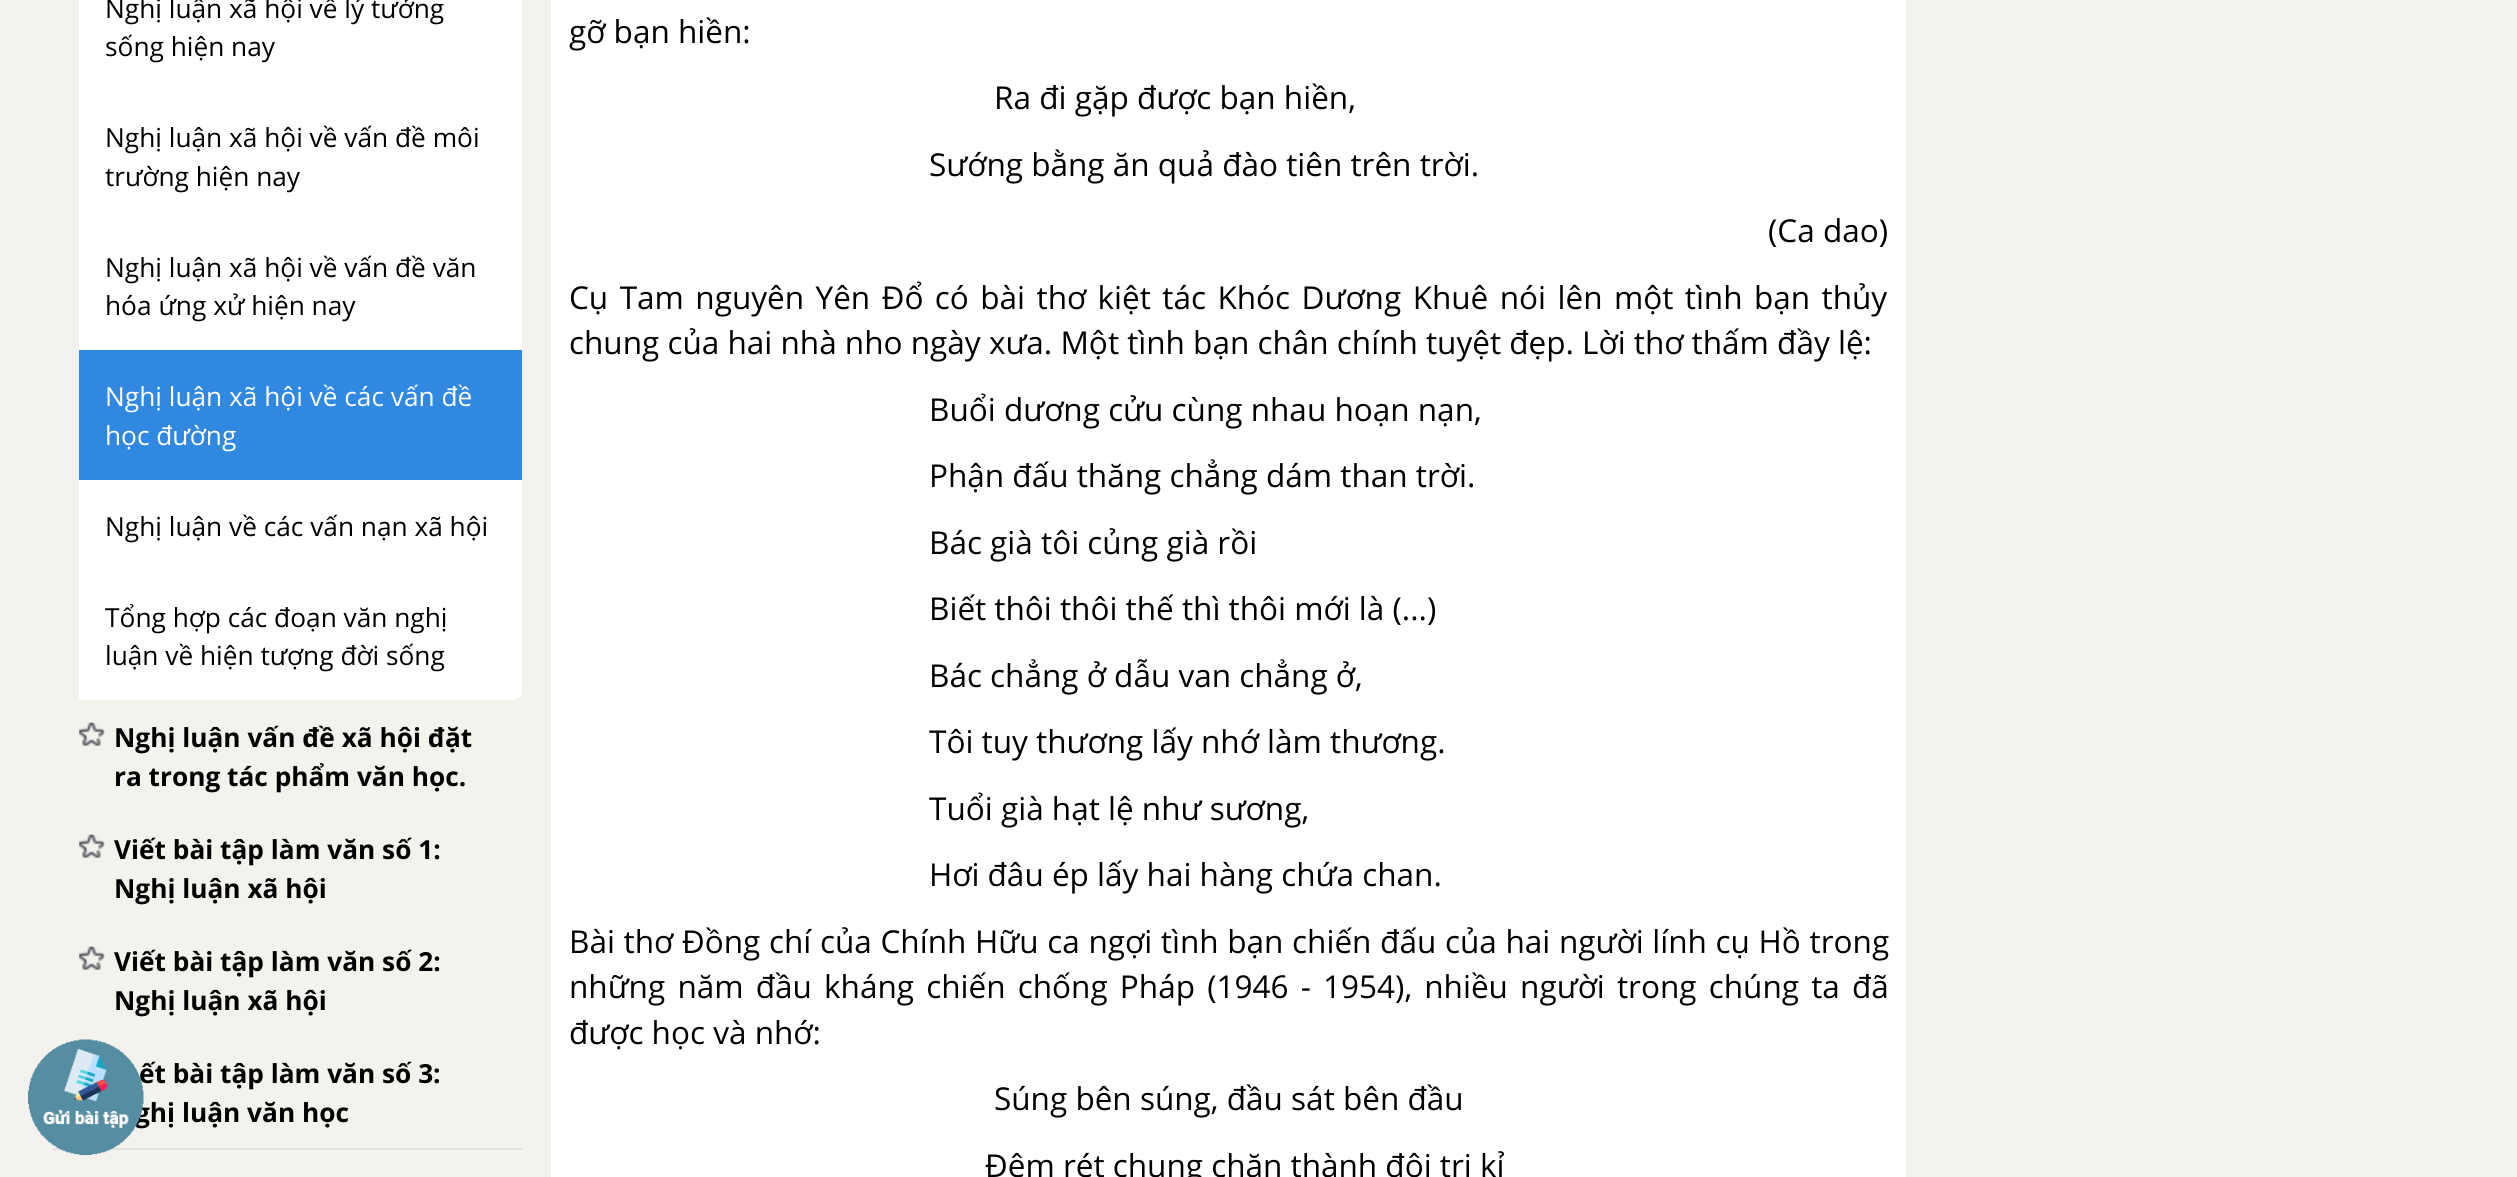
import math
import cairocffi as cairo

surface = cairo.ImageSurface(cairo.FORMAT_RGB24, 2517, 1177)
cr = cairo.Context(surface)
options = cairo.FontOptions()
options.set_hint_metrics(cairo.HINT_METRICS_OFF)
options.set_hint_style(cairo.HINT_STYLE_NONE)
cr.set_font_options(options)
cr.set_miter_limit(4)


def use_color(code):
    cr.set_source_rgb(*(v / 255 for v in bytes.fromhex(code[-6:])))


def spaced_text(x, y, s, letter, word):
    cr.move_to(x, y)
    for ch in s:
        cr.show_text(ch)
        cr.rel_move_to(letter + word * (ch == ' '), 0)


def picture(path, x, y, w, h):
    cr.save()
    cr.set_source_surface(cairo.ImageSurface.create_from_png(path), x, y)
    cr.rectangle(x, y, w, h)
    cr.fill()
    cr.restore()


use_color("#f4f2ec")
cr.paint()
use_color("#e0e0e0")
cr.rectangle(53, 1148, 469, 2)
cr.fill()
cr.select_font_face("Open Sans", cairo.FONT_SLANT_NORMAL, cairo.FONT_WEIGHT_BOLD)
cr.set_font_size(26.25)
use_color("#000000")
cr.move_to(139, 1083)
cr.show_text("ết bài tập làm văn số 3:")
cr.move_to(135, 1122)
cr.show_text("ghị luận văn học")
picture("img1.png", 28, 1039, 116, 116)
use_color("#ffffff")
cr.rectangle(79, 0, 443, 350)
cr.fill()
cr.select_font_face("Open Sans")
use_color("#000000")
cr.move_to(105, 18)
cr.show_text("Nghị luận xã hội về lý tưởng")
cr.move_to(105, 56)
cr.show_text("sống hiện nay")
cr.move_to(105, 147)
cr.show_text("Nghị luận xã hội về vấn đề môi")
cr.move_to(105, 186)
cr.show_text("trường hiện nay")
cr.move_to(105, 277)
cr.show_text("Nghị luận xã hội về vấn đề văn")
cr.move_to(105, 315)
cr.show_text("hóa ứng xử hiện nay")
use_color("#3088e1")
cr.rectangle(79, 350, 443, 130)
cr.fill()
use_color("#ffffff")
cr.move_to(105, 406)
cr.show_text("Nghị luận xã hội về các vấn đề")
cr.move_to(105, 445)
cr.show_text("học đường")
cr.rectangle(79, 480, 443, 91)
cr.fill()
use_color("#000000")
cr.move_to(105, 536)
cr.show_text("Nghị luận về các vấn nạn xã hội")
use_color("#ffffff")
cr.new_path()
cr.move_to(79, 571)
cr.line_to(522, 571)
cr.line_to(522, 691)
cr.curve_to(522, 696, 518, 700, 513, 700)
cr.line_to(79, 700)
cr.close_path()
cr.fill()
use_color("#000000")
cr.move_to(105, 627)
cr.show_text("Tổng hợp các đoạn văn nghị")
cr.move_to(105, 665)
cr.show_text("luận về hiện tượng đời sống")
picture("img2.png", 79, 722, 26, 24)
cr.select_font_face("Open Sans", cairo.FONT_SLANT_NORMAL, cairo.FONT_WEIGHT_BOLD)
cr.move_to(114, 747)
cr.show_text("Nghị luận vấn đề xã hội đặt")
cr.move_to(114, 786)
cr.show_text("ra trong tác phẩm văn học.")
picture("img3.png", 79, 834, 26, 24)
cr.move_to(114, 859)
cr.show_text("Viết bài tập làm văn số 1:")
cr.move_to(114, 898)
cr.show_text("Nghị luận xã hội")
picture("img3.png", 79, 946, 26, 24)
cr.move_to(114, 971)
cr.show_text("Viết bài tập làm văn số 2:")
cr.move_to(114, 1010)
cr.show_text("Nghị luận xã hội")
use_color("#ffffff")
cr.rectangle(551, 0, 1355, 1177)
cr.fill()
cr.select_font_face("Open Sans")
cr.set_font_size(31.5)
use_color("#000000")
cr.move_to(569, 43)
cr.show_text("gỡ bạn hiền:")
cr.move_to(994, 109)
cr.show_text("Ra đi gặp được bạn hiền,")
cr.move_to(929, 176)
cr.show_text("Sướng bằng ăn quả đào tiên trên trời.")
cr.move_to(1768, 242)
cr.show_text("(Ca dao)")
spaced_text(569, 309, "Cụ Tam nguyên Yên Đổ có bài thơ kiệt tác Khóc Dương Khuê nói lên một tình bạn thủy", 0, 3.25)
cr.move_to(569, 354)
cr.show_text("chung của hai nhà nho ngày xưa. Một tình bạn chân chính tuyệt đẹp. Lời thơ thấm đầy lệ:")
cr.move_to(929, 421)
cr.show_text("Buổi dương cửu cùng nhau hoạn nạn,")
cr.move_to(929, 487)
cr.show_text("Phận đấu thăng chẳng dám than trời.")
cr.move_to(929, 554)
cr.show_text("Bác già tôi củng già rồi")
cr.move_to(929, 620)
cr.show_text("Biết thôi thôi thế thì thôi mới là (...)")
cr.move_to(929, 687)
cr.show_text("Bác chẳng ở dẫu van chẳng ở,")
cr.move_to(929, 753)
cr.show_text("Tôi tuy thương lấy nhớ làm thương.")
cr.move_to(929, 820)
cr.show_text("Tuổi già hạt lệ như sương,")
cr.move_to(929, 886)
cr.show_text("Hơi đâu ép lấy hai hàng chứa chan.")
spaced_text(569, 953, "Bài thơ Đồng chí của Chính Hữu ca ngợi tình bạn chiến đấu của hai người lính cụ Hồ trong", 0, 0.5)
spaced_text(569, 998, "những năm đầu kháng chiến chống Pháp (1946 - 1954), nhiều người trong chúng ta đã", 0, 4)
cr.move_to(569, 1044)
cr.show_text("được học và nhớ:")
cr.move_to(994, 1110)
cr.show_text("Súng bên súng, đầu sát bên đầu")
cr.move_to(985, 1177)
cr.show_text("Đêm rét chung chăn thành đôi tri kỉ")
surface.write_to_png("result.png")
